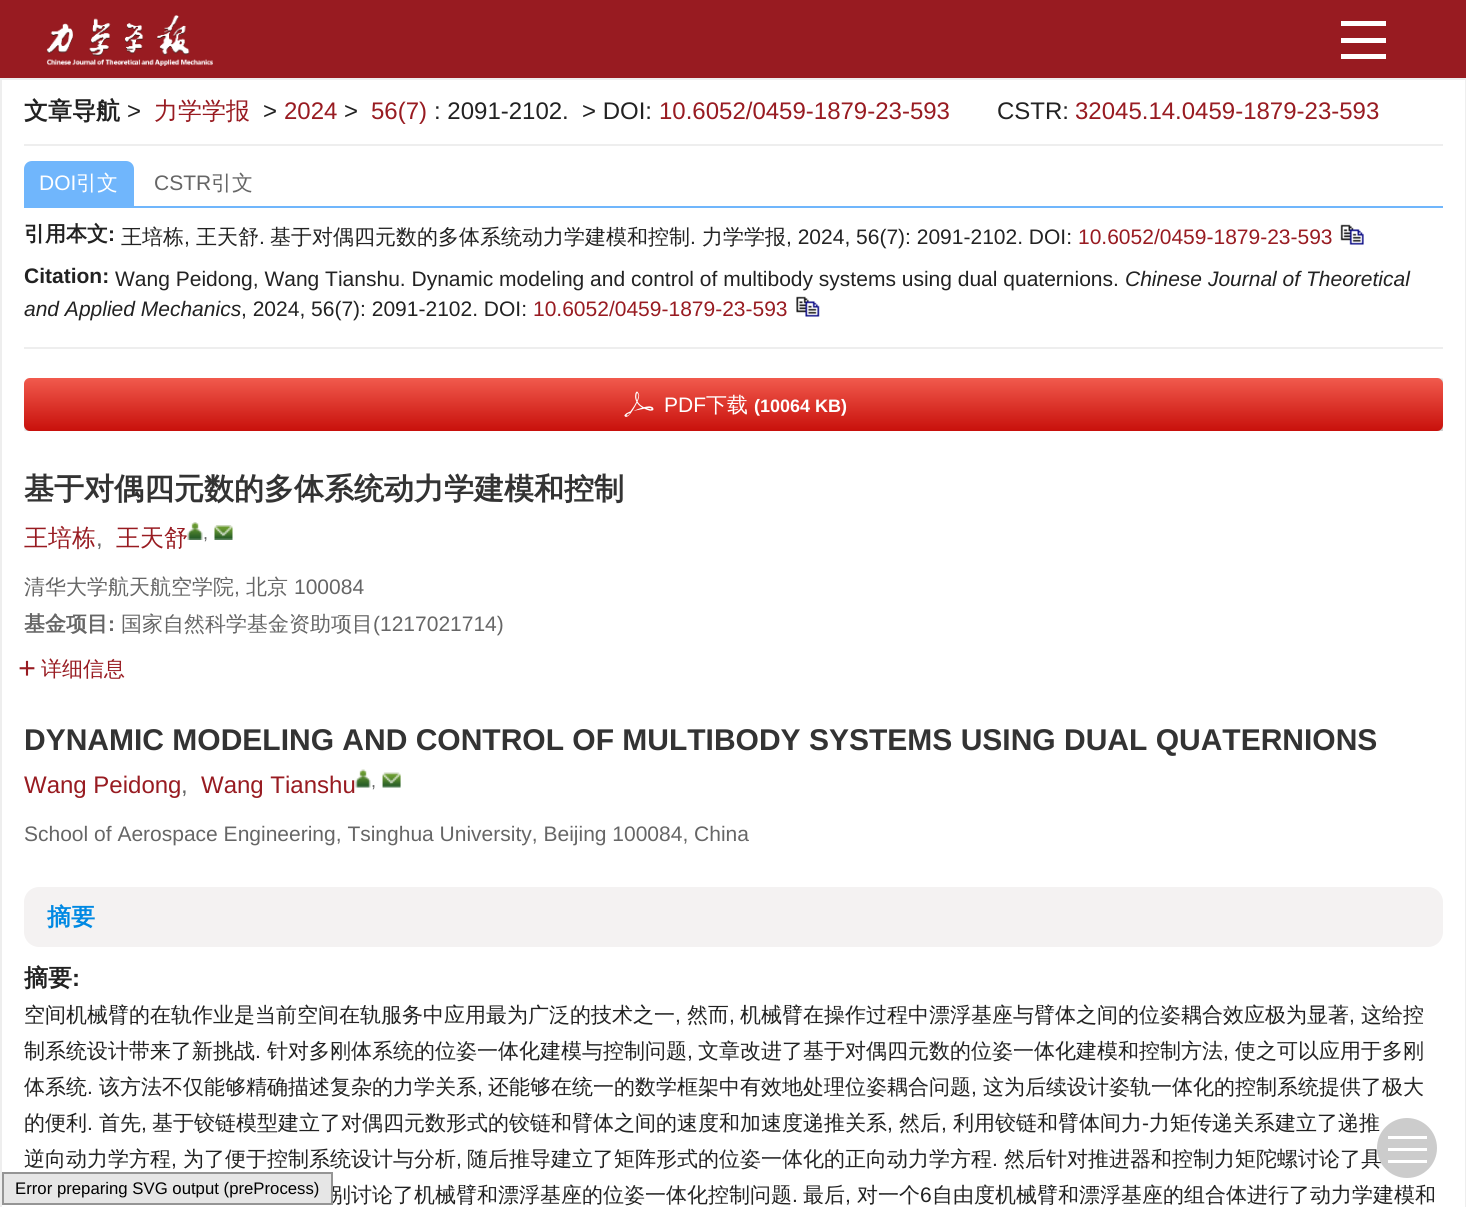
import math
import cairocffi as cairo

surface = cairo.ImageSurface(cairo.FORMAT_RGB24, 1466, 1207)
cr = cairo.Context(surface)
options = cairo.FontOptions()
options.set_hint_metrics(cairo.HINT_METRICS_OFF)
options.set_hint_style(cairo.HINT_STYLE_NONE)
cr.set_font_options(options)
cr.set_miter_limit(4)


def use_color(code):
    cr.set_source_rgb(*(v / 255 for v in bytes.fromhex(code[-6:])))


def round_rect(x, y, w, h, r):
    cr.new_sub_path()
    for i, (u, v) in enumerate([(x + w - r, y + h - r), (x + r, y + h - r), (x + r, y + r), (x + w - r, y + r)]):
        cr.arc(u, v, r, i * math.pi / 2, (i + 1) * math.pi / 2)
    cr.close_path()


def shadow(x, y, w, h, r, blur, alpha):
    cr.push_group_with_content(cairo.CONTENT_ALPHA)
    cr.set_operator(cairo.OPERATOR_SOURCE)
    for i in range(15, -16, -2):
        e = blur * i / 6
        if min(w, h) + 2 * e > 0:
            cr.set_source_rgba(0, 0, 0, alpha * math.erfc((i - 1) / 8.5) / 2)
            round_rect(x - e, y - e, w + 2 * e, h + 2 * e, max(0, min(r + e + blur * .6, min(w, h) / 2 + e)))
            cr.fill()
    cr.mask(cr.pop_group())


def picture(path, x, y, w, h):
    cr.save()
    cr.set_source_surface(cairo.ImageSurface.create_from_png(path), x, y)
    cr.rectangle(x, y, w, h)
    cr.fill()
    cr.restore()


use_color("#ffffff")
cr.paint()
use_color("#981b21")
cr.rectangle(0, 0, 1466, 78)
cr.fill()
picture("img1.png", 46, 15, 167, 51)
use_color("#ffffff")
cr.rectangle(1341, 21, 45, 5)
cr.fill()
cr.rectangle(1341, 38, 45, 5)
cr.fill()
cr.rectangle(1341, 54, 45, 5)
cr.fill()
cr.rectangle(1, 79, 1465, 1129)
use_color("#eeeeee")
cr.stroke()
cr.rectangle(24, 144, 1419, 2)
cr.fill()
cr.select_font_face("WenQuanYi Zen Hei", cairo.FONT_SLANT_NORMAL, cairo.FONT_WEIGHT_BOLD)
cr.set_font_size(24)
use_color("#222222")
cr.move_to(24, 119)
cr.show_text("文章导航")
cr.select_font_face("Liberation Sans")
cr.move_to(127, 119)
cr.show_text(">")
cr.select_font_face("WenQuanYi Zen Hei Medium")
use_color("#981b21")
cr.move_to(154, 119)
cr.show_text("力学学报")
cr.select_font_face("Liberation Sans")
use_color("#222222")
cr.move_to(263, 119)
cr.show_text(">")
use_color("#981b21")
cr.move_to(284, 119)
cr.show_text("2024")
use_color("#222222")
cr.move_to(344, 119)
cr.show_text(">")
use_color("#981b21")
cr.move_to(371, 119)
cr.show_text("56(7)")
use_color("#222222")
cr.move_to(434, 119)
cr.show_text(": 2091-2102.")
cr.move_to(582, 119)
cr.show_text("> DOI:")
use_color("#981b21")
cr.move_to(659, 119)
cr.show_text("10.6052/0459-1879-23-593")
use_color("#222222")
cr.move_to(997, 119)
cr.show_text("CSTR:")
use_color("#981b21")
cr.move_to(1075, 119)
cr.show_text("32045.14.0459-1879-23-593")
use_color("#70b6fc")
cr.rectangle(24, 206, 1419, 2)
cr.fill()
cr.new_path()
cr.move_to(32, 161)
cr.line_to(126, 161)
cr.curve_to(130.5, 161, 134, 164.5, 134, 169)
cr.line_to(134, 206)
cr.line_to(24, 206)
cr.line_to(24, 169)
cr.curve_to(24, 164.5, 27.5, 161, 32, 161)
cr.close_path()
cr.fill()
cr.set_font_size(21)
use_color("#ffffff")
cr.move_to(39, 190)
cr.show_text("DOI")
cr.select_font_face("WenQuanYi Zen Hei Medium")
cr.move_to(76, 190)
cr.show_text("引文")
cr.select_font_face("Liberation Sans")
use_color("#666666")
cr.move_to(154, 190)
cr.show_text("CSTR")
cr.select_font_face("WenQuanYi Zen Hei Medium")
cr.move_to(211, 190)
cr.show_text("引文")
use_color("#eeeeee")
cr.rectangle(24, 347, 1419, 2)
cr.fill()
cr.select_font_face("WenQuanYi Zen Hei", cairo.FONT_SLANT_NORMAL, cairo.FONT_WEIGHT_BOLD)
use_color("#222222")
cr.move_to(24, 241)
cr.show_text("引用本文")
cr.select_font_face("Liberation Sans", cairo.FONT_SLANT_NORMAL, cairo.FONT_WEIGHT_BOLD)
cr.move_to(108, 241)
cr.show_text(":")
cr.select_font_face("WenQuanYi Zen Hei Medium")
cr.move_to(121, 244)
cr.show_text("王培栋")
cr.select_font_face("Liberation Sans")
cr.move_to(184, 244)
cr.show_text(",")
cr.select_font_face("WenQuanYi Zen Hei Medium")
cr.move_to(196, 244)
cr.show_text("王天舒")
cr.select_font_face("Liberation Sans")
cr.move_to(259, 244)
cr.show_text(".")
cr.select_font_face("WenQuanYi Zen Hei Medium")
cr.move_to(270, 244)
cr.show_text("基于对偶四元数的多体系统动力学建模和控制")
cr.select_font_face("Liberation Sans")
cr.move_to(690, 244)
cr.show_text(".")
cr.select_font_face("WenQuanYi Zen Hei Medium")
cr.move_to(702, 244)
cr.show_text("力学学报")
cr.select_font_face("Liberation Sans")
cr.move_to(786, 244)
cr.show_text(", 2024, 56(7): 2091-2102. DOI:")
use_color("#981b21")
cr.move_to(1078, 244)
cr.show_text("10.6052/0459-1879-23-593")
picture("img2.png", 1340, 224, 24, 21)
cr.select_font_face("Liberation Sans", cairo.FONT_SLANT_NORMAL, cairo.FONT_WEIGHT_BOLD)
use_color("#222222")
cr.move_to(24, 283)
cr.show_text("Citation:")
cr.select_font_face("Liberation Sans")
cr.move_to(115, 286)
cr.show_text("Wang Peidong, Wang Tianshu. Dynamic modeling and control of multibody systems using dual quaternions.")
cr.select_font_face("Liberation Sans", cairo.FONT_SLANT_ITALIC)
cr.move_to(1125, 286)
cr.show_text("Chinese Journal of Theoretical")
cr.move_to(24, 316)
cr.show_text("and Applied Mechanics")
cr.select_font_face("Liberation Sans")
cr.move_to(241, 316)
cr.show_text(", 2024, 56(7): 2091-2102. DOI:")
use_color("#981b21")
cr.move_to(533, 316)
cr.show_text("10.6052/0459-1879-23-593")
picture("img3.png", 796, 296, 24, 21)
cr.save()
cr.rectangle(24, 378, 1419, 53)
cr.clip()
use_color("#000000")
shadow(24, 378, 1422, 56, 8, 1, 0.2)
cr.restore()
gradient = cairo.LinearGradient(734, 378, 734, 431)
gradient.add_color_stop_rgba(0, 0.945, 0.353, 0.302, 1)
gradient.add_color_stop_rgba(1, 0.784, 0.063, 0.043, 1)
cr.set_source(gradient)
round_rect(24, 378, 1419, 53, 6)
cr.fill()
picture("img4.png", 624, 391, 30, 26)
use_color("#ffffff")
cr.move_to(664, 412)
cr.show_text("PDF")
cr.select_font_face("WenQuanYi Zen Hei Medium")
cr.move_to(706, 412)
cr.show_text("下载")
cr.select_font_face("Liberation Sans", cairo.FONT_SLANT_NORMAL, cairo.FONT_WEIGHT_BOLD)
cr.set_font_size(18)
cr.move_to(754, 412)
cr.show_text("(10064 KB)")
cr.select_font_face("WenQuanYi Zen Hei", cairo.FONT_SLANT_NORMAL, cairo.FONT_WEIGHT_BOLD)
cr.set_font_size(30)
use_color("#333333")
cr.move_to(24, 499)
cr.show_text("基于对偶四元数的多体系统动力学建模和控制")
cr.select_font_face("WenQuanYi Zen Hei Medium")
cr.set_font_size(24)
use_color("#981b21")
cr.move_to(24, 546)
cr.show_text("王培栋")
cr.select_font_face("Liberation Sans")
use_color("#666666")
cr.move_to(96, 546)
cr.show_text(",")
cr.select_font_face("WenQuanYi Zen Hei Medium")
use_color("#981b21")
cr.move_to(116, 546)
cr.show_text("王天舒")
picture("img5.png", 187, 522, 16, 18)
cr.select_font_face("Liberation Sans")
cr.set_font_size(18)
use_color("#666666")
cr.move_to(203, 539)
cr.show_text(",")
picture("img6.png", 214, 525, 19, 15)
cr.select_font_face("WenQuanYi Zen Hei Medium")
cr.set_font_size(21)
cr.move_to(24, 594)
cr.show_text("清华大学航天航空学院")
cr.select_font_face("Liberation Sans")
cr.move_to(234, 594)
cr.show_text(",")
cr.select_font_face("WenQuanYi Zen Hei Medium")
cr.move_to(246, 594)
cr.show_text("北京")
cr.select_font_face("Liberation Sans")
cr.move_to(294, 594)
cr.show_text("100084")
cr.select_font_face("WenQuanYi Zen Hei", cairo.FONT_SLANT_NORMAL, cairo.FONT_WEIGHT_BOLD)
cr.move_to(24, 631)
cr.show_text("基金项目")
cr.select_font_face("Liberation Sans", cairo.FONT_SLANT_NORMAL, cairo.FONT_WEIGHT_BOLD)
cr.move_to(108, 631)
cr.show_text(":")
cr.select_font_face("WenQuanYi Zen Hei Medium")
cr.move_to(121, 631)
cr.show_text("国家自然科学基金资助项目")
cr.select_font_face("Liberation Sans")
cr.move_to(373, 631)
cr.show_text("(1217021714)")
picture("img7.png", 19, 660, 16, 16)
cr.select_font_face("WenQuanYi Zen Hei Medium")
use_color("#981b21")
cr.move_to(41, 676)
cr.show_text("详细信息")
cr.select_font_face("Liberation Sans", cairo.FONT_SLANT_NORMAL, cairo.FONT_WEIGHT_BOLD)
cr.set_font_size(30)
use_color("#333333")
cr.move_to(24, 750)
cr.show_text("DYNAMIC MODELING AND CONTROL OF MULTIBODY SYSTEMS USING DUAL QUATERNIONS")
cr.select_font_face("Liberation Sans")
cr.set_font_size(24)
use_color("#981b21")
cr.move_to(24, 793)
cr.show_text("Wang Peidong")
use_color("#666666")
cr.move_to(181, 793)
cr.show_text(",")
use_color("#981b21")
cr.move_to(201, 793)
cr.show_text("Wang Tianshu")
picture("img8.png", 355, 769, 16, 19)
cr.set_font_size(18)
use_color("#666666")
cr.move_to(371, 787)
cr.show_text(",")
picture("img9.png", 382, 772, 19, 16)
cr.set_font_size(21)
cr.move_to(24, 841)
cr.show_text("School of Aerospace Engineering, Tsinghua University, Beijing 100084, China")
use_color("#f4f2f2")
round_rect(24, 887, 1419, 60, 15)
cr.fill()
cr.select_font_face("WenQuanYi Zen Hei", cairo.FONT_SLANT_NORMAL, cairo.FONT_WEIGHT_BOLD)
cr.set_font_size(24)
use_color("#0089e3")
cr.move_to(47, 925)
cr.show_text("摘要")
use_color("#222222")
cr.move_to(24, 986)
cr.show_text("摘要")
cr.select_font_face("Liberation Sans", cairo.FONT_SLANT_NORMAL, cairo.FONT_WEIGHT_BOLD)
cr.move_to(72, 986)
cr.show_text(":")
cr.select_font_face("WenQuanYi Zen Hei Medium")
cr.set_font_size(21)
cr.move_to(24, 1022)
cr.show_text("空间机械臂的在轨作业是当前空间在轨服务中应用最为广泛的技术之一")
cr.select_font_face("Liberation Sans")
cr.move_to(675, 1022)
cr.show_text(",")
cr.select_font_face("WenQuanYi Zen Hei Medium")
cr.move_to(687, 1022)
cr.show_text("然而")
cr.select_font_face("Liberation Sans")
cr.move_to(729, 1022)
cr.show_text(",")
cr.select_font_face("WenQuanYi Zen Hei Medium")
cr.move_to(740, 1022)
cr.show_text("机械臂在操作过程中漂浮基座与臂体之间的位姿耦合效应极为显著")
cr.select_font_face("Liberation Sans")
cr.move_to(1349, 1022)
cr.show_text(",")
cr.select_font_face("WenQuanYi Zen Hei Medium")
cr.move_to(1361, 1022)
cr.show_text("这给控")
cr.move_to(24, 1058)
cr.show_text("制系统设计带来了新挑战")
cr.select_font_face("Liberation Sans")
cr.move_to(255, 1058)
cr.show_text(".")
cr.select_font_face("WenQuanYi Zen Hei Medium")
cr.move_to(267, 1058)
cr.show_text("针对多刚体系统的位姿一体化建模与控制问题")
cr.select_font_face("Liberation Sans")
cr.move_to(687, 1058)
cr.show_text(",")
cr.select_font_face("WenQuanYi Zen Hei Medium")
cr.move_to(698, 1058)
cr.show_text("文章改进了基于对偶四元数的位姿一体化建模和控制方法")
cr.select_font_face("Liberation Sans")
cr.move_to(1223, 1058)
cr.show_text(",")
cr.select_font_face("WenQuanYi Zen Hei Medium")
cr.move_to(1235, 1058)
cr.show_text("使之可以应用于多刚")
cr.move_to(24, 1094)
cr.show_text("体系统")
cr.select_font_face("Liberation Sans")
cr.move_to(87, 1094)
cr.show_text(".")
cr.select_font_face("WenQuanYi Zen Hei Medium")
cr.move_to(99, 1094)
cr.show_text("该方法不仅能够精确描述复杂的力学关系")
cr.select_font_face("Liberation Sans")
cr.move_to(477, 1094)
cr.show_text(",")
cr.select_font_face("WenQuanYi Zen Hei Medium")
cr.move_to(488, 1094)
cr.show_text("还能够在统一的数学框架中有效地处理位姿耦合问题")
cr.select_font_face("Liberation Sans")
cr.move_to(971, 1094)
cr.show_text(",")
cr.select_font_face("WenQuanYi Zen Hei Medium")
cr.move_to(983, 1094)
cr.show_text("这为后续设计姿轨一体化的控制系统提供了极大")
cr.move_to(24, 1130)
cr.show_text("的便利")
cr.move_to(99, 1130)
cr.show_text("首先")
cr.move_to(152, 1130)
cr.show_text("基于铰链模型建立了对偶四元数形式的铰链和臂体之间的速度和加速度递推关系")
cr.move_to(899, 1130)
cr.show_text("然后")
cr.move_to(953, 1130)
cr.show_text("利用铰链和臂体间力")
cr.select_font_face("Liberation Sans")
cr.move_to(1142, 1130)
cr.show_text("-")
cr.select_font_face("WenQuanYi Zen Hei Medium")
cr.move_to(1149, 1130)
cr.show_text("力矩传递关系建立了递推")
cr.select_font_face("Liberation Sans")
cr.move_to(87, 1130)
cr.show_text(".")
cr.move_to(141, 1130)
cr.show_text(",")
cr.move_to(887, 1130)
cr.show_text(",")
cr.move_to(941, 1130)
cr.show_text(",")
cr.select_font_face("WenQuanYi Zen Hei Medium")
cr.move_to(24, 1166)
cr.show_text("逆向动力学方程")
cr.select_font_face("Liberation Sans")
cr.move_to(171, 1166)
cr.show_text(",")
cr.select_font_face("WenQuanYi Zen Hei Medium")
cr.move_to(183, 1166)
cr.show_text("为了便于控制系统设计与分析")
cr.select_font_face("Liberation Sans")
cr.move_to(456, 1166)
cr.show_text(",")
cr.select_font_face("WenQuanYi Zen Hei Medium")
cr.move_to(467, 1166)
cr.show_text("随后推导建立了矩阵形式的位姿一体化的正向动力学方程")
cr.select_font_face("Liberation Sans")
cr.move_to(992, 1166)
cr.show_text(".")
cr.select_font_face("WenQuanYi Zen Hei Medium")
cr.move_to(1004, 1166)
cr.show_text("然后针对推进器和控制力矩陀螺讨论了具")
cr.move_to(330, 1202)
cr.show_text("别讨论了机械臂和漂浮基座的位姿一体化控制问题")
cr.select_font_face("Liberation Sans")
cr.move_to(792, 1202)
cr.show_text(".")
cr.select_font_face("WenQuanYi Zen Hei Medium")
cr.move_to(803, 1202)
cr.show_text("最后")
cr.select_font_face("Liberation Sans")
cr.move_to(845, 1202)
cr.show_text(",")
cr.select_font_face("WenQuanYi Zen Hei Medium")
cr.move_to(857, 1202)
cr.show_text("对一个")
cr.select_font_face("Liberation Sans")
cr.move_to(920, 1202)
cr.show_text("6")
cr.select_font_face("WenQuanYi Zen Hei Medium")
cr.move_to(932, 1202)
cr.show_text("自由度机械臂和漂浮基座的组合体进行了动力学建模和")
use_color("#cccccc")
cr.new_path()
cr.arc(1407, 1148, 29, 0, 2 * math.pi)
cr.fill_preserve()
cr.stroke()
use_color("#ffffff")
cr.rectangle(1388, 1136, 39, 3)
cr.fill()
cr.rectangle(1388, 1148, 39, 3)
cr.fill()
cr.rectangle(1388, 1160, 39, 3)
cr.fill()
use_color("#e6e6e6")
cr.rectangle(3, 1173, 329, 31)
cr.fill_preserve()
use_color("#959595")
cr.stroke()
cr.select_font_face("Liberation Sans")
cr.set_font_size(16.75)
use_color("#000000")
cr.move_to(15, 1194)
cr.show_text("Error preparing SVG output (preProcess)")
surface.write_to_png("result.png")
